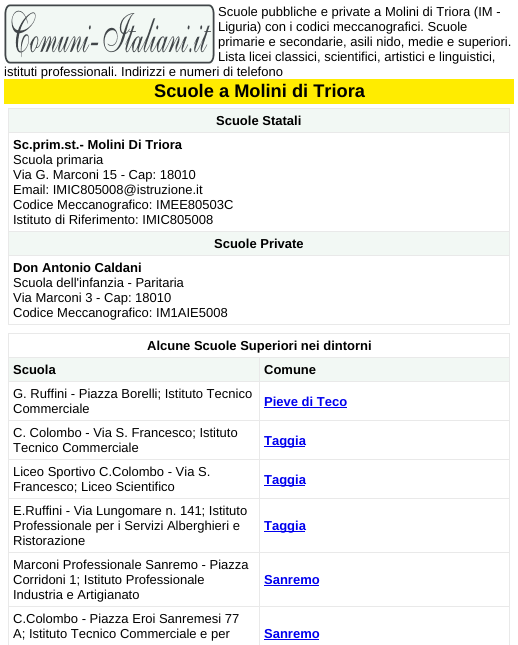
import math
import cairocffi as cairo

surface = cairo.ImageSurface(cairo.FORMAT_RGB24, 518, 645)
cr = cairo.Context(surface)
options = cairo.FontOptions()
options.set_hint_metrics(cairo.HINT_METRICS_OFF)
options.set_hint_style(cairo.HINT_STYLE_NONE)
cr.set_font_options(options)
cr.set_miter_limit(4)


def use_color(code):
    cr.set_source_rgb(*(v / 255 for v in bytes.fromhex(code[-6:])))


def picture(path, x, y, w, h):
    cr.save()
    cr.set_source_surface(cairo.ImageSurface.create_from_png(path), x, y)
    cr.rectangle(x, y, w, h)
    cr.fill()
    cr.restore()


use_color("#ffffff")
cr.paint()
picture("img1.png", 4, 4, 211, 60)
cr.select_font_face("Liberation Sans")
cr.set_font_size(13)
use_color("#000000")
cr.move_to(218, 16)
cr.show_text("Scuole pubbliche e private a Molini di Triora (IM -")
cr.move_to(218, 31)
cr.show_text("Liguria) con i codici meccanografici. Scuole")
cr.move_to(218, 46)
cr.show_text("primarie e secondarie, asili nido, medie e superiori.")
cr.move_to(218, 61)
cr.show_text("Lista licei classici, scientifici, artistici e linguistici,")
cr.move_to(4, 76)
cr.show_text("istituti professionali. Indirizzi e numeri di telefono")
use_color("#ffec00")
cr.rectangle(4, 79, 510, 25)
cr.fill()
cr.select_font_face("Liberation Sans", cairo.FONT_SLANT_NORMAL, cairo.FONT_WEIGHT_BOLD)
cr.set_font_size(18.25)
use_color("#000000")
cr.move_to(154, 97)
cr.show_text("Scuole a Molini di Triora")
use_color("#e9e9e9")
cr.rectangle(8, 108, 502, 1)
cr.fill()
cr.rectangle(509, 108, 1, 217)
cr.fill()
cr.rectangle(8, 324, 502, 1)
cr.fill()
cr.rectangle(8, 108, 1, 217)
cr.fill()
use_color("#f2f8f4")
cr.rectangle(9, 109, 500, 23)
cr.fill()
cr.set_font_size(13)
use_color("#000000")
cr.move_to(216, 125)
cr.show_text("Scuole Statali")
use_color("#e9e9e9")
cr.rectangle(8, 132, 502, 1)
cr.fill()
use_color("#000000")
cr.move_to(13, 149)
cr.show_text("Sc.prim.st.- Molini Di Triora")
cr.select_font_face("Liberation Sans")
cr.move_to(13, 164)
cr.show_text("Scuola primaria")
cr.move_to(13, 179)
cr.show_text("Via G. Marconi 15 - Cap: 18010")
cr.move_to(13, 194)
cr.show_text("Email: IMIC805008@istruzione.it")
cr.move_to(13, 209)
cr.show_text("Codice Meccanografico: IMEE80503C")
cr.move_to(13, 224)
cr.show_text("Istituto di Riferimento: IMIC805008")
use_color("#f2f8f4")
cr.rectangle(9, 232, 500, 23)
cr.fill()
use_color("#e9e9e9")
cr.rectangle(8, 231, 502, 1)
cr.fill()
cr.select_font_face("Liberation Sans", cairo.FONT_SLANT_NORMAL, cairo.FONT_WEIGHT_BOLD)
use_color("#000000")
cr.move_to(214, 248)
cr.show_text("Scuole Private")
use_color("#e9e9e9")
cr.rectangle(8, 255, 502, 1)
cr.fill()
use_color("#000000")
cr.move_to(13, 272)
cr.show_text("Don Antonio Caldani")
cr.select_font_face("Liberation Sans")
cr.move_to(13, 287)
cr.show_text("Scuola dell'infanzia - Paritaria")
cr.move_to(13, 302)
cr.show_text("Via Marconi 3 - Cap: 18010")
cr.move_to(13, 317)
cr.show_text("Codice Meccanografico: IM1AIE5008")
use_color("#e9e9e9")
cr.rectangle(8, 333, 502, 1)
cr.fill()
cr.rectangle(509, 333, 1, 312)
cr.fill()
cr.rectangle(8, 333, 1, 312)
cr.fill()
cr.select_font_face("Liberation Sans", cairo.FONT_SLANT_NORMAL, cairo.FONT_WEIGHT_BOLD)
use_color("#000000")
cr.move_to(147, 350)
cr.show_text("Alcune Scuole Superiori nei dintorni")
use_color("#f2f8f4")
cr.rectangle(9, 358, 250, 23)
cr.fill()
use_color("#e9e9e9")
cr.rectangle(259, 357, 251, 1)
cr.fill()
cr.rectangle(259, 381, 251, 1)
cr.fill()
cr.rectangle(259, 420, 251, 1)
cr.fill()
cr.rectangle(259, 459, 251, 1)
cr.fill()
cr.rectangle(259, 498, 251, 1)
cr.fill()
cr.rectangle(259, 552, 251, 1)
cr.fill()
cr.rectangle(259, 606, 251, 1)
cr.fill()
cr.rectangle(259, 606, 1, 39)
cr.fill()
cr.rectangle(8, 606, 252, 1)
cr.fill()
cr.rectangle(259, 552, 1, 55)
cr.fill()
cr.rectangle(8, 552, 252, 1)
cr.fill()
cr.rectangle(259, 498, 1, 55)
cr.fill()
cr.rectangle(8, 498, 252, 1)
cr.fill()
cr.rectangle(259, 459, 1, 40)
cr.fill()
cr.rectangle(8, 459, 252, 1)
cr.fill()
cr.rectangle(259, 420, 1, 40)
cr.fill()
cr.rectangle(8, 420, 252, 1)
cr.fill()
cr.rectangle(259, 381, 1, 40)
cr.fill()
cr.rectangle(8, 381, 252, 1)
cr.fill()
cr.rectangle(259, 357, 1, 25)
cr.fill()
cr.rectangle(8, 357, 252, 1)
cr.fill()
use_color("#000000")
cr.move_to(13, 374)
cr.show_text("Scuola")
use_color("#f2f8f4")
cr.rectangle(260, 358, 249, 23)
cr.fill()
use_color("#000000")
cr.move_to(264, 374)
cr.show_text("Comune")
cr.select_font_face("Liberation Sans")
cr.move_to(13, 398)
cr.show_text("G. Ruffini - Piazza Borelli; Istituto Tecnico")
cr.move_to(13, 413)
cr.show_text("Commerciale")
cr.select_font_face("Liberation Sans", cairo.FONT_SLANT_NORMAL, cairo.FONT_WEIGHT_BOLD)
use_color("#0000ee")
cr.move_to(264, 406)
cr.show_text("Pieve di Teco")
cr.rectangle(264, 407, 83, 1)
cr.fill()
cr.select_font_face("Liberation Sans")
use_color("#000000")
cr.move_to(13, 437)
cr.show_text("C. Colombo - Via S. Francesco; Istituto")
cr.move_to(13, 452)
cr.show_text("Tecnico Commerciale")
use_color("#0000ee")
cr.rectangle(264, 446, 41, 1)
cr.fill()
cr.select_font_face("Liberation Sans", cairo.FONT_SLANT_NORMAL, cairo.FONT_WEIGHT_BOLD)
cr.move_to(264, 445)
cr.show_text("Taggia")
cr.select_font_face("Liberation Sans")
use_color("#000000")
cr.move_to(13, 476)
cr.show_text("Liceo Sportivo C.Colombo - Via S.")
cr.move_to(13, 491)
cr.show_text("Francesco; Liceo Scientifico")
use_color("#0000ee")
cr.rectangle(264, 485, 41, 1)
cr.fill()
cr.select_font_face("Liberation Sans", cairo.FONT_SLANT_NORMAL, cairo.FONT_WEIGHT_BOLD)
cr.move_to(264, 484)
cr.show_text("Taggia")
cr.select_font_face("Liberation Sans")
use_color("#000000")
cr.move_to(13, 515)
cr.show_text("E.Ruffini - Via Lungomare n. 141; Istituto")
cr.move_to(13, 530)
cr.show_text("Professionale per i Servizi Alberghieri e")
cr.move_to(13, 545)
cr.show_text("Ristorazione")
use_color("#0000ee")
cr.rectangle(264, 531, 41, 1)
cr.fill()
cr.select_font_face("Liberation Sans", cairo.FONT_SLANT_NORMAL, cairo.FONT_WEIGHT_BOLD)
cr.move_to(264, 530)
cr.show_text("Taggia")
cr.select_font_face("Liberation Sans")
use_color("#000000")
cr.move_to(13, 569)
cr.show_text("Marconi Professionale Sanremo - Piazza")
cr.move_to(13, 584)
cr.show_text("Corridoni 1; Istituto Professionale")
cr.move_to(13, 599)
cr.show_text("Industria e Artigianato")
cr.select_font_face("Liberation Sans", cairo.FONT_SLANT_NORMAL, cairo.FONT_WEIGHT_BOLD)
use_color("#0000ee")
cr.move_to(264, 584)
cr.show_text("Sanremo")
cr.rectangle(264, 585, 55, 1)
cr.fill()
cr.select_font_face("Liberation Sans")
use_color("#000000")
cr.move_to(13, 623)
cr.show_text("C.Colombo - Piazza Eroi Sanremesi 77")
cr.move_to(13, 638)
cr.show_text("A; Istituto Tecnico Commerciale e per")
cr.select_font_face("Liberation Sans", cairo.FONT_SLANT_NORMAL, cairo.FONT_WEIGHT_BOLD)
use_color("#0000ee")
cr.move_to(264, 638)
cr.show_text("Sanremo")
cr.rectangle(264, 639, 55, 1)
cr.fill()
surface.write_to_png("result.png")
